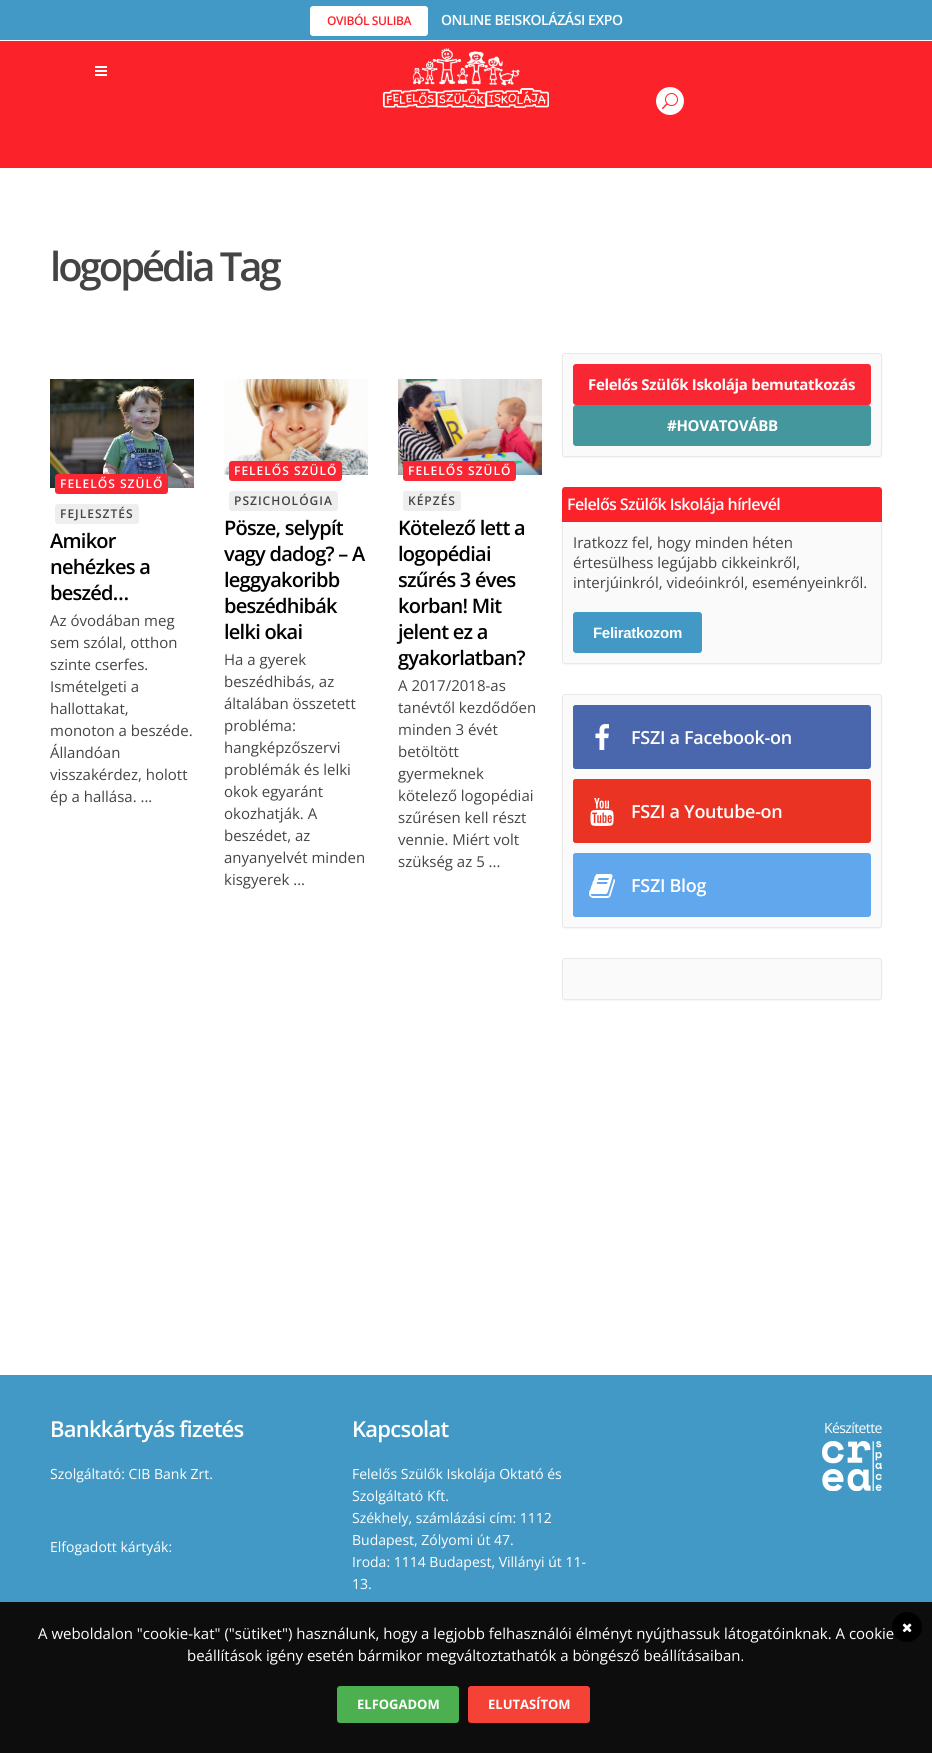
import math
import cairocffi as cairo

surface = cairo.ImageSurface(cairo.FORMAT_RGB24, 932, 1753)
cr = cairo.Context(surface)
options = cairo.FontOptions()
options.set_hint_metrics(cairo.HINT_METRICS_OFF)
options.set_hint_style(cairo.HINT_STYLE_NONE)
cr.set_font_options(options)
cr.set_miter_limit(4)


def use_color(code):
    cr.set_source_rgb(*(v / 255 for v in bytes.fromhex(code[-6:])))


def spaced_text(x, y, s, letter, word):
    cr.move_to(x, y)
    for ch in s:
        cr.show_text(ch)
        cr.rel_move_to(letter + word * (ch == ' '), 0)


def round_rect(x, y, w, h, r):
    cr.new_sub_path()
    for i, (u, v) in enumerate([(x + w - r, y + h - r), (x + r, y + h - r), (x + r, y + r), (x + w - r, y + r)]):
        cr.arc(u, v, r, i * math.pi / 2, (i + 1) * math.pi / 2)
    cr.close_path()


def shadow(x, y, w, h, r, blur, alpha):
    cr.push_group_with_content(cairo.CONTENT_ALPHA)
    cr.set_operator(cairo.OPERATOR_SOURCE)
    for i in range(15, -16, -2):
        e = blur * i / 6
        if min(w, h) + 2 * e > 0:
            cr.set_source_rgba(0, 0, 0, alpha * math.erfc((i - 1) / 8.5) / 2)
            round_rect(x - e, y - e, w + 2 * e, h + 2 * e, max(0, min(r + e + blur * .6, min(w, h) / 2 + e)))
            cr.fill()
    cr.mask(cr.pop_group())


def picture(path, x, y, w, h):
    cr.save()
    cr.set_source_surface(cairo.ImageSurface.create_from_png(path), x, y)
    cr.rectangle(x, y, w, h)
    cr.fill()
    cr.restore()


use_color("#ffffff")
cr.paint()
use_color("#4299c5")
cr.rectangle(0, 0, 932, 40)
cr.fill()
use_color("#ffffff")
round_rect(310, 6, 118, 30, 3)
cr.fill()
cr.select_font_face("Open Sans SemiBold")
cr.set_font_size(12)
use_color("#fc222a")
spaced_text(327, 25, "OVIBÓL SULIBA", -0.4, 0)
cr.set_font_size(14)
use_color("#ffffff")
spaced_text(441, 25, "ONLINE BEISKOLÁZÁSI EXPO", -0.4, 0)
use_color("#fc222a")
cr.rectangle(0, 41, 932, 127)
cr.fill()
picture("img1.png", 95, 66, 12, 10)
picture("img2.png", 382, 48, 167, 60)
use_color("#ffffff")
cr.arc(670, 101, 14, 0, 2 * math.pi)
cr.fill()
picture("img3.png", 662, 93, 16, 16)
cr.set_font_size(40)
use_color("#444444")
spaced_text(50, 281, "logopédia Tag", -3, 0)
picture("img4.png", 50, 379, 144, 109)
use_color("#f92733")
round_rect(55, 474, 113, 20, 3)
cr.fill()
cr.set_font_size(12)
use_color("#ffffff")
spaced_text(60, 488, "FELELŐS SZÜLŐ", 1, 0)
use_color("#eeeeee")
round_rect(55, 504, 84, 20, 3)
cr.fill()
use_color("#444444")
spaced_text(60, 518, "FEJLESZTÉS", 1, 0)
cr.set_font_size(20)
use_color("#000000")
spaced_text(50, 548, "Amikor", -0.75, 0)
spaced_text(50, 574, "nehézkes a", -0.75, 0)
spaced_text(50, 600, "beszéd…", -0.75, 0)
cr.select_font_face("Open Sans")
cr.set_font_size(15)
use_color("#444444")
cr.move_to(50, 626)
cr.show_text("Az óvodában meg")
cr.move_to(50, 648)
cr.show_text("sem szólal, otthon")
cr.move_to(50, 670)
cr.show_text("szinte cserfes.")
cr.move_to(50, 692)
cr.show_text("Ismételgeti a")
cr.move_to(50, 714)
cr.show_text("hallottakat,")
cr.move_to(50, 736)
cr.show_text("monoton a beszéde.")
cr.move_to(50, 758)
cr.show_text("Állandóan")
cr.move_to(50, 780)
cr.show_text("visszakérdez, holott")
cr.move_to(50, 802)
cr.show_text("ép a hallása. ...")
picture("img5.png", 224, 379, 144, 96)
use_color("#f92733")
round_rect(229, 461, 113, 20, 3)
cr.fill()
cr.select_font_face("Open Sans SemiBold")
cr.set_font_size(12)
use_color("#ffffff")
spaced_text(234, 475, "FELELŐS SZÜLŐ", 1, 0)
use_color("#eeeeee")
round_rect(229, 491, 109, 20, 3)
cr.fill()
use_color("#444444")
spaced_text(234, 505, "PSZICHOLÓGIA", 1, 0)
cr.set_font_size(20)
use_color("#000000")
spaced_text(224, 535, "Pösze, selypít", -0.75, 0)
spaced_text(224, 561, "vagy dadog? – A", -0.75, 0)
spaced_text(224, 587, "leggyakoribb", -0.75, 0)
spaced_text(224, 613, "beszédhibák", -0.75, 0)
spaced_text(224, 639, "lelki okai", -0.75, 0)
cr.select_font_face("Open Sans")
cr.set_font_size(15)
use_color("#444444")
cr.move_to(224, 665)
cr.show_text("Ha a gyerek")
cr.move_to(224, 687)
cr.show_text("beszédhibás, az")
cr.move_to(224, 709)
cr.show_text("általában összetett")
cr.move_to(224, 731)
cr.show_text("probléma:")
cr.move_to(224, 753)
cr.show_text("hangképzőszervi")
cr.move_to(224, 775)
cr.show_text("problémák és lelki")
cr.move_to(224, 797)
cr.show_text("okok egyaránt")
cr.move_to(224, 819)
cr.show_text("okozhatják. A")
cr.move_to(224, 841)
cr.show_text("beszédet, az")
cr.move_to(224, 863)
cr.show_text("anyanyelvét minden")
cr.move_to(224, 885)
cr.show_text("kisgyerek ...")
picture("img6.png", 398, 379, 144, 96)
use_color("#f92733")
round_rect(403, 461, 113, 20, 3)
cr.fill()
cr.select_font_face("Open Sans SemiBold")
cr.set_font_size(12)
use_color("#ffffff")
spaced_text(408, 475, "FELELŐS SZÜLŐ", 1, 0)
use_color("#eeeeee")
round_rect(403, 491, 58, 20, 3)
cr.fill()
use_color("#444444")
spaced_text(408, 505, "KÉPZÉS", 1, 0)
cr.set_font_size(20)
use_color("#000000")
spaced_text(398, 535, "Kötelező lett a", -0.75, 0)
spaced_text(398, 561, "logopédiai", -0.75, 0)
spaced_text(398, 587, "szűrés 3 éves", -0.75, 0)
spaced_text(398, 613, "korban! Mit", -0.75, 0)
spaced_text(398, 639, "jelent ez a", -0.75, 0)
spaced_text(398, 665, "gyakorlatban?", -0.75, 0)
cr.select_font_face("Open Sans")
cr.set_font_size(15)
use_color("#444444")
cr.move_to(398, 691)
cr.show_text("A 2017/2018-as")
cr.move_to(398, 713)
cr.show_text("tanévtől kezdődően")
cr.move_to(398, 735)
cr.show_text("minden 3 évét")
cr.move_to(398, 757)
cr.show_text("betöltött")
cr.move_to(398, 779)
cr.show_text("gyermeknek")
cr.move_to(398, 801)
cr.show_text("kötelező logopédiai")
cr.move_to(398, 823)
cr.show_text("szűrésen kell részt")
cr.move_to(398, 845)
cr.show_text("vennie. Miért volt")
cr.move_to(398, 867)
cr.show_text("szükség az 5 ...")
use_color("#000000")
shadow(562, 354, 320, 104, 3, 1, 0.04)
use_color("#fafafa")
round_rect(562.5, 353.5, 319, 103, 2.5)
cr.fill_preserve()
use_color("#e8e8e8")
cr.set_line_width(1)
cr.stroke()
use_color("#f92733")
round_rect(573, 364, 298, 41, 3)
cr.fill()
cr.select_font_face("Open Sans", cairo.FONT_SLANT_NORMAL, cairo.FONT_WEIGHT_BOLD)
use_color("#ffffff")
spaced_text(588, 390, "Felelős Szülők Iskolája bemutatkozás", -0.3, 0)
use_color("#43979d")
round_rect(573, 405, 298, 41, 3)
cr.fill()
use_color("#ffffff")
spaced_text(667, 431, "#HOVATOVÁBB", -0.3, 0)
use_color("#000000")
shadow(562, 488, 320, 177, 3, 1, 0.04)
use_color("#fafafa")
round_rect(562.5, 487.5, 319, 176, 2.5)
cr.fill_preserve()
use_color("#e8e8e8")
cr.stroke()
use_color("#fc222a")
cr.new_path()
cr.move_to(565, 487)
cr.line_to(879, 487)
cr.curve_to(880.5, 487, 882, 488.5, 882, 490)
cr.line_to(882, 522)
cr.line_to(562, 522)
cr.line_to(562, 490)
cr.curve_to(562, 488.5, 563.5, 487, 565, 487)
cr.close_path()
cr.fill()
cr.select_font_face("Open Sans SemiBold")
cr.set_font_size(16)
use_color("#ffffff")
spaced_text(567, 510, "Felelős Szülők Iskolája hírlevél", -0.6, 0)
cr.select_font_face("Open Sans")
cr.set_font_size(15)
use_color("#444444")
cr.move_to(573, 548)
cr.show_text("Iratkozz fel, hogy minden héten")
cr.move_to(573, 568)
cr.show_text("értesülhess legújabb cikkeinkről,")
cr.move_to(573, 588)
cr.show_text("interjúinkról, videóinkról, eseményeinkről.")
use_color("#4299c5")
round_rect(573, 612, 129, 41, 3)
cr.fill()
cr.select_font_face("Liberation Sans", cairo.FONT_SLANT_NORMAL, cairo.FONT_WEIGHT_BOLD)
use_color("#ffffff")
spaced_text(593, 638, "Feliratkozom", -0.3, 0)
use_color("#000000")
shadow(562, 695, 320, 234, 3, 1, 0.04)
use_color("#fafafa")
round_rect(562.5, 694.5, 319, 233, 2.5)
cr.fill_preserve()
use_color("#e8e8e8")
cr.stroke()
use_color("#4a66ad")
round_rect(573, 705, 298, 64, 3)
cr.fill()
cr.save()
round_rect(573, 705, 298, 64, 3)
cr.clip()
round_rect(573, 705, 58, 65, 3)
cr.fill()
cr.restore()
picture("img7.png", 595, 724, 14, 26)
cr.select_font_face("Open Sans SemiBold")
cr.set_font_size(18)
use_color("#ffffff")
spaced_text(631, 744, "FSZI a Facebook-on", -0.3, 0)
use_color("#ea3323")
round_rect(573, 779, 298, 64, 3)
cr.fill()
cr.save()
round_rect(573, 779, 298, 64, 3)
cr.clip()
round_rect(573, 779, 58, 65, 3)
cr.fill()
cr.restore()
picture("img8.png", 590, 798, 24, 28)
use_color("#ffffff")
spaced_text(631, 818, "FSZI a Youtube-on", -0.3, 0)
use_color("#60a7ee")
round_rect(573, 853, 298, 64, 3)
cr.fill()
cr.save()
round_rect(573, 853, 298, 64, 3)
cr.clip()
round_rect(573, 853, 58, 65, 3)
cr.fill()
cr.restore()
picture("img9.png", 589, 874, 26, 24)
use_color("#ffffff")
spaced_text(631, 892, "FSZI Blog", -0.3, 0)
use_color("#000000")
shadow(562, 959, 320, 42, 3, 1, 0.04)
use_color("#fafafa")
round_rect(562.5, 958.5, 319, 41, 2.5)
cr.fill_preserve()
use_color("#e8e8e8")
cr.stroke()
use_color("#4299c5")
cr.rectangle(0, 1375, 932, 227)
cr.fill()
cr.set_font_size(22)
use_color("#ffffff")
spaced_text(50, 1437, "Bankkártyás fizetés", -0.75, 0)
cr.select_font_face("Open Sans")
cr.set_font_size(14)
cr.move_to(50, 1479)
cr.show_text("Szolgáltató: CIB Bank Zrt.")
cr.move_to(50, 1552)
cr.show_text("Elfogadott kártyák:")
cr.select_font_face("Open Sans SemiBold")
cr.set_font_size(22)
spaced_text(352, 1437, "Kapcsolat", -0.75, 0)
cr.select_font_face("Open Sans")
cr.set_font_size(14)
cr.move_to(352, 1479)
cr.show_text("Felelős Szülők Iskolája Oktató és")
cr.move_to(352, 1501)
cr.show_text("Szolgáltató Kft.")
cr.move_to(352, 1523)
cr.show_text("Székhely, számlázási cím: 1112")
cr.move_to(352, 1545)
cr.show_text("Budapest, Zólyomi út 47.")
cr.move_to(352, 1567)
cr.show_text("Iroda: 1114 Budapest, Villányi út 11-")
cr.move_to(352, 1589)
cr.show_text("13.")
spaced_text(824, 1433, "Készítette", -0.6, 0)
picture("img10.png", 822, 1441, 60, 50)
use_color("#0d0d0d")
cr.rectangle(0, 1602, 932, 151)
cr.fill()
cr.set_font_size(15)
use_color("#ffffff")
cr.move_to(38, 1639)
cr.show_text("A weboldalon \"cookie-kat\" (\"sütiket\") használunk, hogy a legjobb felhasználói élményt nyújthassuk látogatóinknak. A cookie")
cr.move_to(187, 1661)
cr.show_text("beállítások igény esetén bármikor megváltoztathatók a böngésző beállításaiban.")
use_color("#000000")
cr.new_path()
cr.arc(907, 1627, 15, 0, 2 * math.pi)
cr.fill()
picture("img11.png", 902, 1623, 10, 10)
use_color("#4caf50")
round_rect(337, 1686, 122, 37, 3)
cr.fill()
cr.select_font_face("Open Sans", cairo.FONT_SLANT_NORMAL, cairo.FONT_WEIGHT_BOLD)
cr.set_font_size(13)
use_color("#ffffff")
cr.move_to(357, 1709)
cr.show_text("ELFOGADOM")
use_color("#f44336")
round_rect(468, 1686, 122, 37, 3)
cr.fill()
use_color("#ffffff")
cr.move_to(488, 1709)
cr.show_text("ELUTASÍTOM")
surface.write_to_png("result.png")
